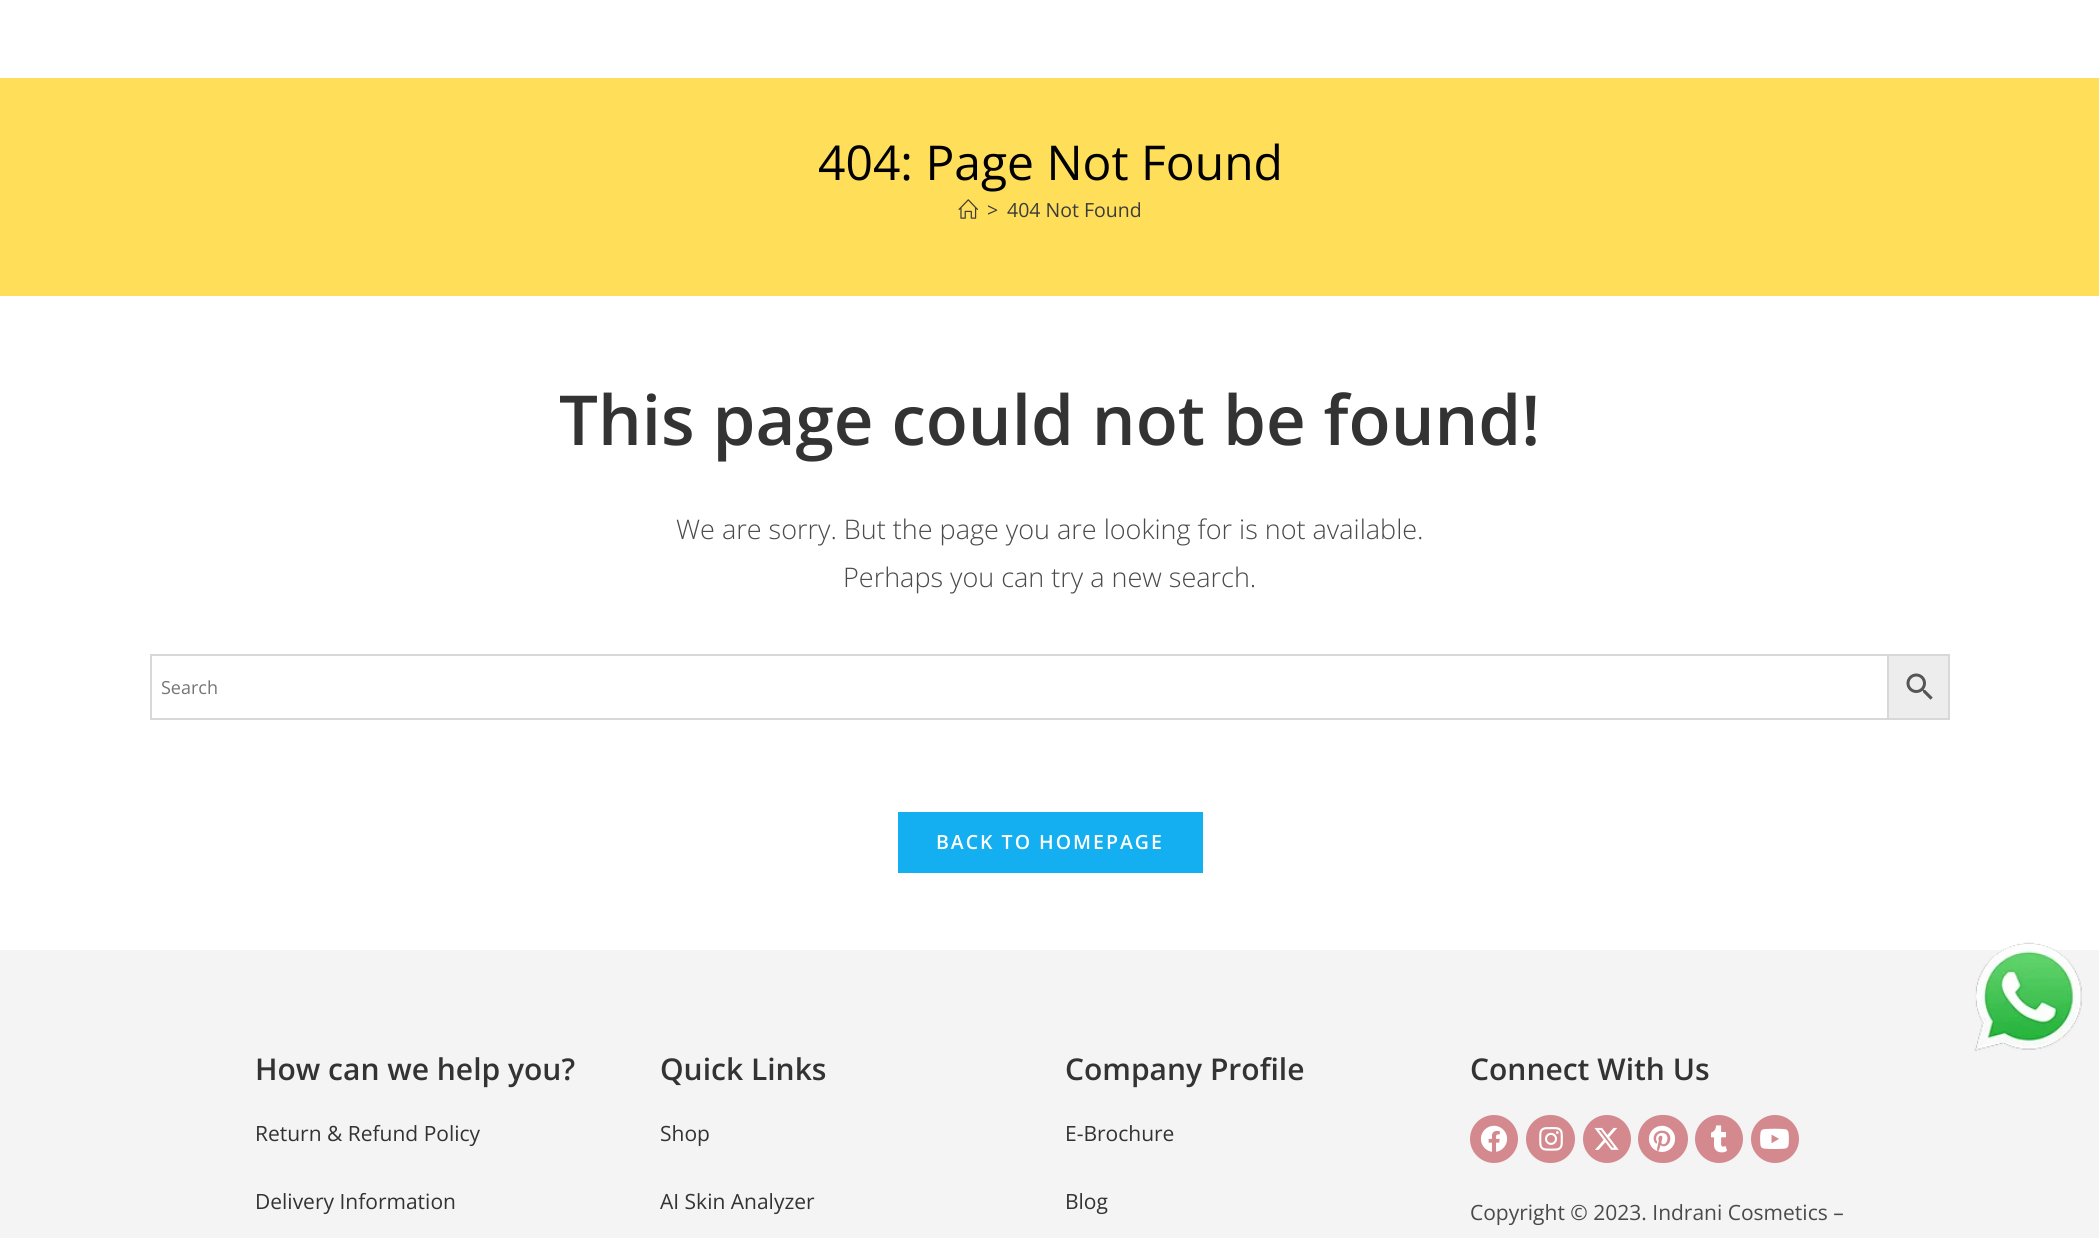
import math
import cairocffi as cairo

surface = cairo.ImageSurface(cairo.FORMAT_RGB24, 2099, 1238)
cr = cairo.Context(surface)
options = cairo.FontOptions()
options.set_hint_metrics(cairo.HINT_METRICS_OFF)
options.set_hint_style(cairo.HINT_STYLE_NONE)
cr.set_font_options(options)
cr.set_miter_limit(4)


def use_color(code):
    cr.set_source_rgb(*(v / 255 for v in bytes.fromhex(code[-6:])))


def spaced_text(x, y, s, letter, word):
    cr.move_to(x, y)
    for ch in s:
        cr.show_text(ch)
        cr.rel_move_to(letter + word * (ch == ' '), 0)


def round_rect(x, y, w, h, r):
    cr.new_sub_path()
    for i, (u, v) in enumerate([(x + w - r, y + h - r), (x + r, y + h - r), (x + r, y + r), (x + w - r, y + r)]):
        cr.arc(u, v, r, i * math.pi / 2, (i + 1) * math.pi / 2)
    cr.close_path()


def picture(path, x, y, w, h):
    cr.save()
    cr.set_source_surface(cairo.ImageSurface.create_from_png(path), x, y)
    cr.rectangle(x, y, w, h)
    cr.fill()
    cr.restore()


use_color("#ffffff")
cr.paint()
use_color("#ffde59")
cr.rectangle(0, 78, 2099, 218)
cr.fill()
cr.select_font_face("Open Sans")
cr.set_font_size(48)
use_color("#000000")
cr.move_to(818, 180)
cr.show_text("404: Page Not Found")
picture("img1.png", 958, 199, 20, 20)
cr.set_font_size(19.5)
use_color("#3c3c3c")
cr.move_to(987, 217)
cr.show_text(">")
cr.move_to(1007, 217)
cr.show_text("404 Not Found")
cr.select_font_face("Open Sans SemiBold")
cr.set_font_size(69)
use_color("#333333")
cr.move_to(559, 445)
cr.show_text("This page could not be found!")
cr.select_font_face("Open Sans Light")
cr.set_font_size(27)
use_color("#4a4a4a")
cr.move_to(676, 539)
cr.show_text("We are sorry. But the page you are looking for is not available.")
cr.move_to(843, 587)
cr.show_text("Perhaps you can try a new search.")
use_color("#ededed")
cr.rectangle(1888, 655, 61, 64)
cr.fill_preserve()
use_color("#d8d8d8")
cr.stroke()
cr.rectangle(151, 655, 1737, 64)
cr.stroke()
cr.select_font_face("Open Sans")
cr.set_font_size(18)
use_color("#757575")
cr.move_to(161, 694)
cr.show_text("Search")
picture("img2.png", 1906, 673, 27, 27)
use_color("#13aff0")
cr.rectangle(898, 812, 305, 61)
cr.fill()
cr.select_font_face("Open Sans SemiBold")
cr.set_font_size(19.5)
use_color("#ffffff")
spaced_text(936, 849, "BACK TO HOMEPAGE", 2, 0)
use_color("#f4f4f4")
cr.rectangle(0, 950, 2099, 288)
cr.fill()
cr.set_font_size(30)
use_color("#333333")
cr.move_to(255, 1080)
cr.show_text("How can we help you?")
cr.select_font_face("Open Sans")
cr.set_font_size(21)
cr.move_to(255, 1141)
cr.show_text("Return & Refund Policy")
cr.move_to(255, 1209)
cr.show_text("Delivery Information")
cr.select_font_face("Open Sans SemiBold")
cr.set_font_size(30)
cr.move_to(660, 1080)
cr.show_text("Quick Links")
cr.select_font_face("Open Sans")
cr.set_font_size(21)
cr.move_to(660, 1141)
cr.show_text("Shop")
cr.move_to(660, 1209)
cr.show_text("AI Skin Analyzer")
cr.select_font_face("Open Sans SemiBold")
cr.set_font_size(30)
cr.move_to(1065, 1080)
cr.show_text("Company Profile")
cr.select_font_face("Open Sans")
cr.set_font_size(21)
cr.move_to(1065, 1141)
cr.show_text("E-Brochure")
cr.move_to(1065, 1209)
cr.show_text("Blog")
cr.select_font_face("Open Sans SemiBold")
cr.set_font_size(30)
cr.move_to(1470, 1080)
cr.show_text("Connect With Us")
use_color("#d4898f")
cr.new_path()
cr.arc(1494, 1139, 24, 0, 2 * math.pi)
cr.fill()
picture("img3.png", 1480, 1125, 28, 27)
round_rect(1526, 1115, 49, 48, 24)
cr.fill()
picture("img4.png", 1539, 1127, 24, 24)
cr.arc(1607, 1139, 24, 0, 2 * math.pi)
cr.fill()
picture("img5.png", 1594, 1127, 25, 23)
round_rect(1638, 1115, 50, 48, 24)
cr.fill()
picture("img6.png", 1648, 1125, 28, 27)
cr.arc(1719, 1139, 24, 0, 2 * math.pi)
cr.fill()
picture("img7.png", 1711, 1125, 16, 28)
cr.arc(1775, 1139, 24, 0, 2 * math.pi)
cr.fill()
picture("img8.png", 1760, 1128, 29, 21)
cr.select_font_face("Open Sans")
cr.set_font_size(21)
use_color("#4a4a4a")
cr.move_to(1470, 1220)
cr.show_text("Copyright © 2023. Indrani Cosmetics –")
picture("img9.png", 1974, 942, 108, 109)
surface.write_to_png("result.png")
